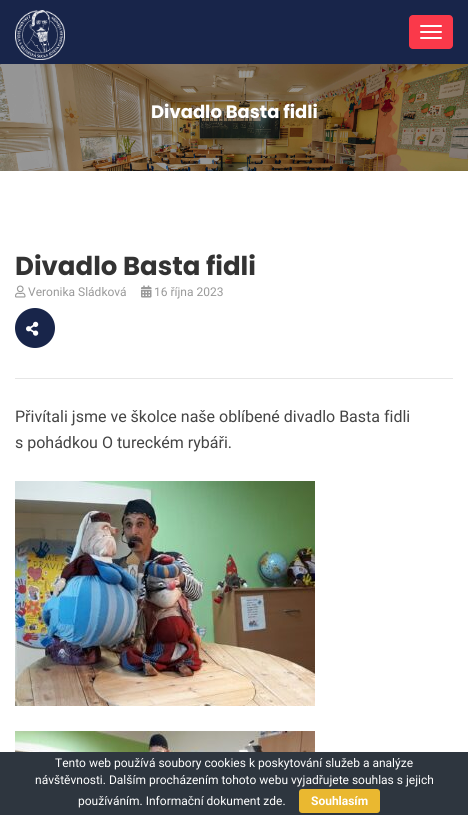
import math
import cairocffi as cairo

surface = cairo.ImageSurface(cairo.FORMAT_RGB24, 468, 815)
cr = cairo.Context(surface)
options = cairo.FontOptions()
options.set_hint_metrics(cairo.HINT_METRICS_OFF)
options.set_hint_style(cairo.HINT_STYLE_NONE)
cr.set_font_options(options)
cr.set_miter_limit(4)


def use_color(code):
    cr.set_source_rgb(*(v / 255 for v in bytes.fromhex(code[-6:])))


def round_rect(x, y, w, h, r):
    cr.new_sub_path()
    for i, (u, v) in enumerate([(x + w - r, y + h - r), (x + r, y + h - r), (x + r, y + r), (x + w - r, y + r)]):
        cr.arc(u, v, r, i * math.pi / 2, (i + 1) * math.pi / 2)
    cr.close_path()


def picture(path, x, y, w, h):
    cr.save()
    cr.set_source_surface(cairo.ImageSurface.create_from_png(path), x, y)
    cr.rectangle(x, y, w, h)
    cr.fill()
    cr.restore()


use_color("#ffffff")
cr.paint()
use_color("#18254a")
cr.rectangle(0, 0, 468, 64)
cr.fill()
picture("img1.png", 15, 10, 50, 50)
use_color("#fa394a")
round_rect(409, 15, 44, 34, 4)
cr.fill()
use_color("#ffffff")
round_rect(420, 25, 22, 2, 1)
cr.fill()
round_rect(420, 31, 22, 2, 1)
cr.fill()
round_rect(420, 37, 22, 2, 1)
cr.fill()
picture("img2.png", 0, 64, 468, 107)
cr.select_font_face("Poppins", cairo.FONT_SLANT_NORMAL, cairo.FONT_WEIGHT_BOLD)
cr.set_font_size(18)
cr.move_to(151, 118)
cr.show_text("Divadlo Basta fidli")
cr.set_font_size(26)
use_color("#333333")
cr.move_to(15, 275)
cr.show_text("Divadlo Basta fidli")
use_color("#e6e6e6")
cr.rectangle(15, 378, 438, 1)
cr.fill()
picture("img3.png", 15, 285, 11, 13)
cr.select_font_face("Roboto")
cr.set_font_size(12)
use_color("#999999")
cr.move_to(28, 296)
cr.show_text("Veronika Sládková")
picture("img4.png", 141, 285, 11, 13)
cr.move_to(154, 296)
cr.show_text("16 října 2023")
use_color("#18254a")
cr.new_path()
cr.arc(35, 328, 20, 0, 2 * math.pi)
cr.fill()
picture("img5.png", 26, 321, 13, 15)
cr.set_font_size(16)
use_color("#444444")
cr.move_to(15, 422)
cr.show_text("Přivítali jsme ve školce naše oblíbené divadlo Basta fidli")
cr.move_to(15, 448)
cr.show_text("s pohádkou O tureckém rybáři.")
picture("img6.png", 15, 481, 300, 225)
picture("img7.png", 15, 731, 300, 21)
use_color("#2e363f")
cr.rectangle(0, 752, 468, 63)
cr.fill()
cr.set_font_size(12)
use_color("#ffffff")
cr.move_to(55, 767)
cr.show_text("Tento web používá soubory cookies k poskytování služeb a analýze")
cr.move_to(35, 784)
cr.show_text("návštěvnosti. Dalším procházením tohoto webu vyjadřujete souhlas s jejich")
cr.move_to(78, 805)
cr.show_text("používáním. Informační dokument zde.")
use_color("#eab830")
round_rect(299, 789, 81, 24, 3)
cr.fill()
cr.select_font_face("Roboto", cairo.FONT_SLANT_NORMAL, cairo.FONT_WEIGHT_BOLD)
use_color("#ffffff")
cr.move_to(311, 805)
cr.show_text("Souhlasím")
surface.write_to_png("result.png")
